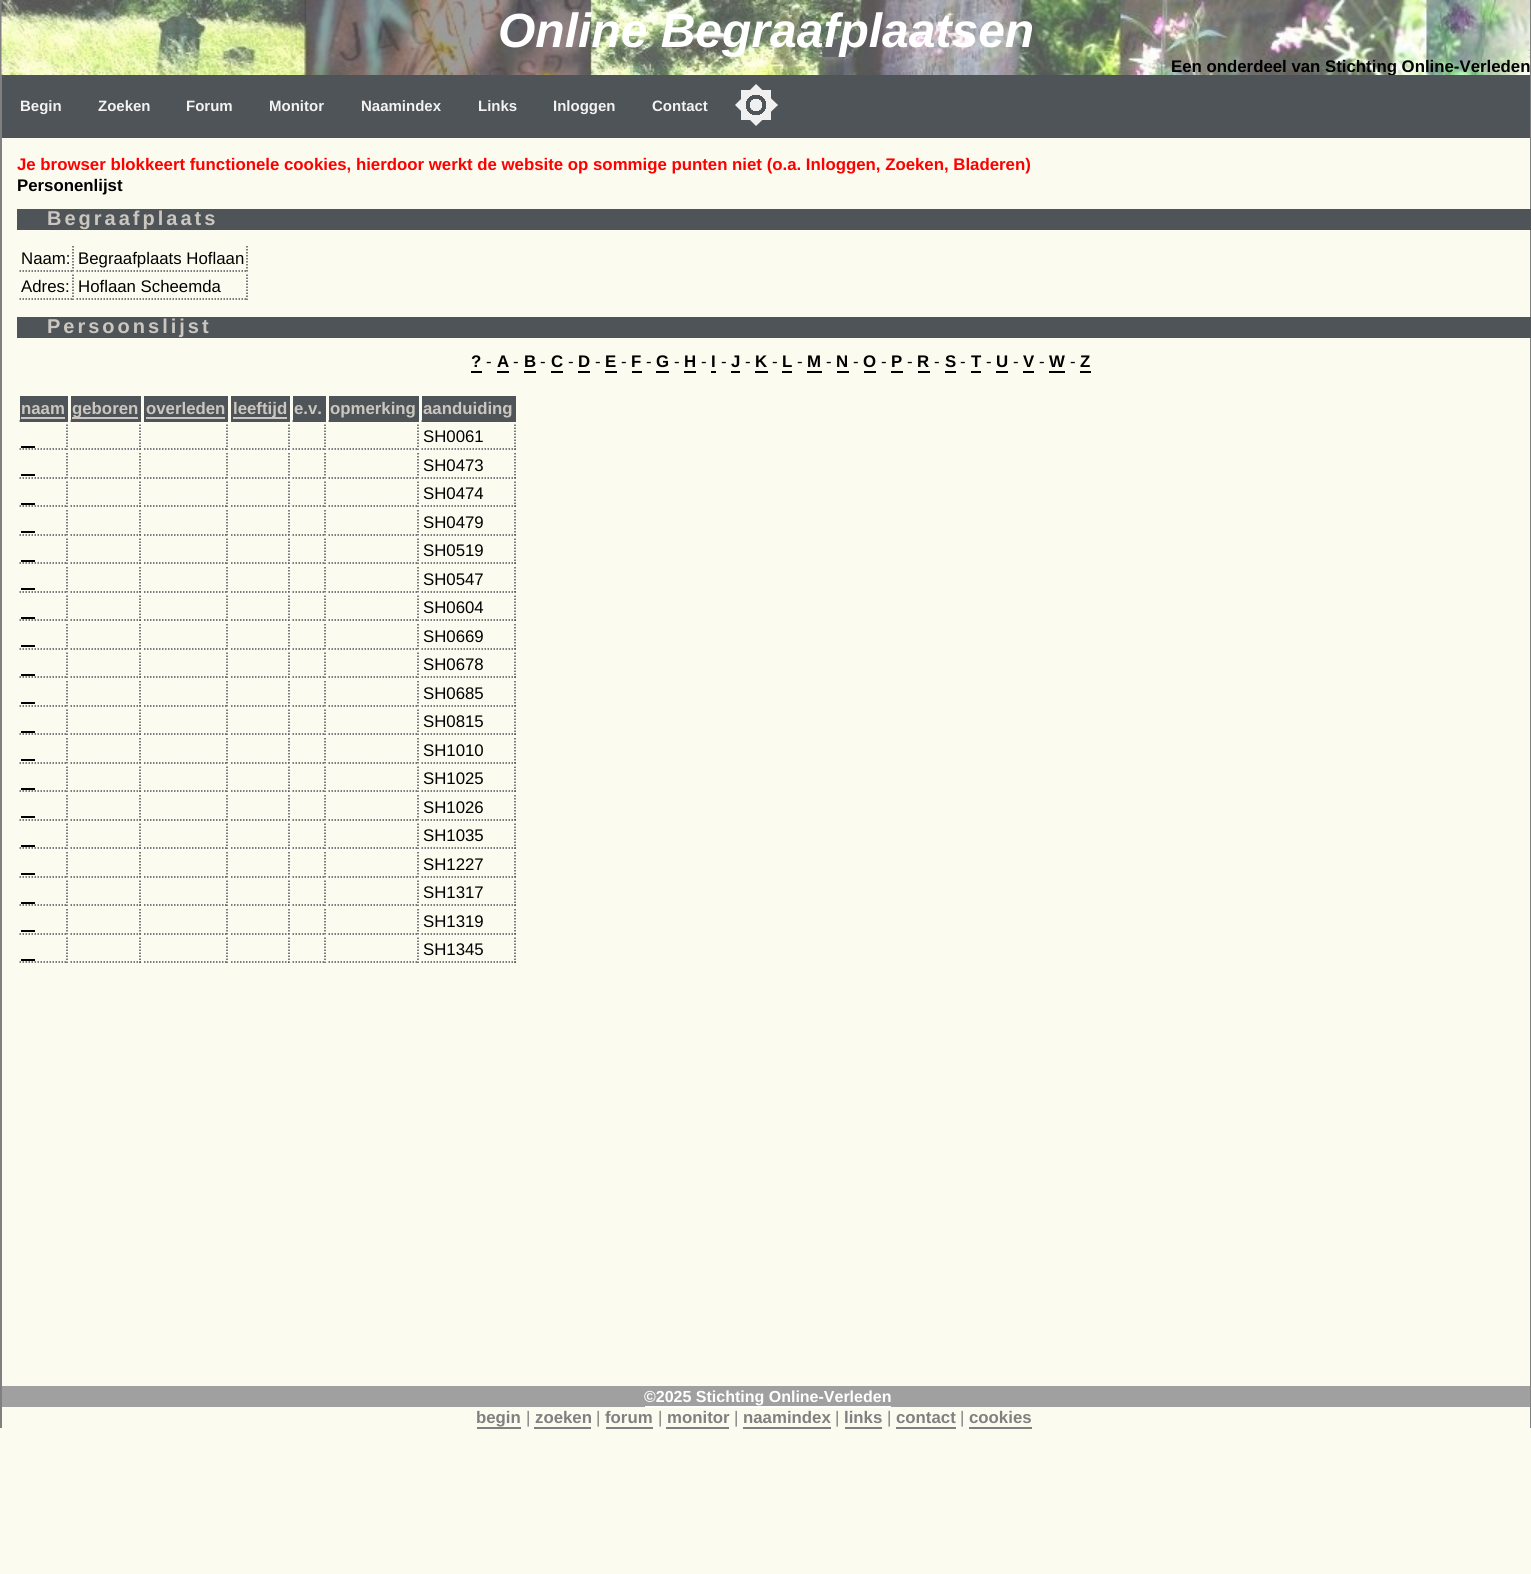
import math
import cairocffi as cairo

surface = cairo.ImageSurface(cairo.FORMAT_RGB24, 1531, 1574)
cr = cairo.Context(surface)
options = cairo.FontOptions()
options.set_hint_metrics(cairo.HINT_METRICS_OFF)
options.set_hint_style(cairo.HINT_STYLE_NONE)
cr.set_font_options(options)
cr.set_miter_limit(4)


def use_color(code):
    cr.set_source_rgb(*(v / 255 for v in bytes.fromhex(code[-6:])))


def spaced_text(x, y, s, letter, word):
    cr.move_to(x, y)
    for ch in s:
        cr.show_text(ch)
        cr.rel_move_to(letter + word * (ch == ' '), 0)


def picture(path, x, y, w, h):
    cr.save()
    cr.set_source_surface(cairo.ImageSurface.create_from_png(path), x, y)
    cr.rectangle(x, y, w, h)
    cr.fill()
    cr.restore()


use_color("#fcfbf0")
cr.paint()
use_color("#808080")
cr.rectangle(1530, 0, 1, 1428)
cr.fill()
cr.rectangle(0, 0, 2, 1428)
cr.fill()
picture("img1.png", 1, 0, 1529, 75)
cr.select_font_face("Liberation Sans", cairo.FONT_SLANT_ITALIC, cairo.FONT_WEIGHT_BOLD)
cr.set_font_size(48)
use_color("#ffffff")
cr.move_to(498, 47)
cr.show_text("Online Begraafplaatsen")
cr.select_font_face("Liberation Sans", cairo.FONT_SLANT_NORMAL, cairo.FONT_WEIGHT_BOLD)
cr.set_font_size(16.8)
use_color("#000000")
cr.move_to(1171, 72)
cr.show_text("Een onderdeel van Stichting Online-Verleden")
use_color("#4e5457")
cr.rectangle(2, 75, 1528, 63)
cr.fill()
cr.set_font_size(15)
use_color("#f2f2f2")
cr.move_to(20, 111)
cr.show_text("Begin")
cr.move_to(98, 111)
cr.show_text("Zoeken")
cr.move_to(186, 111)
cr.show_text("Forum")
cr.move_to(269, 111)
cr.show_text("Monitor")
cr.move_to(361, 111)
cr.show_text("Naamindex")
cr.move_to(478, 111)
cr.show_text("Links")
cr.move_to(553, 111)
cr.show_text("Inloggen")
cr.move_to(652, 111)
cr.show_text("Contact")
gradient = cairo.RadialGradient(756, 105, 0, 756, 105, 21)
gradient.add_color_stop_rgba(0, 0.306, 0.329, 0.341, 1)
gradient.add_color_stop_rgba(0.5, 0.306, 0.329, 0.341, 1)
gradient.add_color_stop_rgba(0.5, 0.941, 0.941, 0.941, 1)
cr.set_source(gradient)
cr.rectangle(741, 90, 30, 30)
cr.fill()
gradient = cairo.RadialGradient(756, 105, 0, 756, 105, 21)
gradient.add_color_stop_rgba(0.3, 0.941, 0.941, 0.941, 1)
gradient.add_color_stop_rgba(0.31, 0.941, 0.941, 0.941, 0)
gradient.add_color_stop_rgba(0.5, 0.941, 0.941, 0.941, 0)
gradient.add_color_stop_rgba(0.5, 0.941, 0.941, 0.941, 1)
cr.set_source(gradient)
cr.new_path()
cr.move_to(756, 126)
cr.line_to(735, 105)
cr.line_to(756, 84)
cr.line_to(778, 105)
cr.close_path()
cr.fill()
cr.set_font_size(16.8)
use_color("#ff0000")
cr.move_to(17, 170)
cr.show_text("Je browser blokkeert functionele cookies, hierdoor werkt de website op sommige punten niet (o.a. Inloggen, Zoeken, Bladeren)")
use_color("#000000")
cr.move_to(17, 191)
cr.show_text("Personenlijst")
use_color("#4e5457")
cr.rectangle(17, 209, 1514, 21)
cr.fill()
cr.set_font_size(20)
use_color("#cbc7c0")
spaced_text(47, 225, "Begraafplaats", 3, 0)
cr.new_path()
cr.move_to(73, 246)
cr.line_to(73, 271.5)
cr.move_to(19.5, 271)
cr.line_to(73.5, 271)
use_color("#4e5457")
cr.set_line_width(1.5)
cr.set_dash([1.5, 1.5])
cr.stroke()
cr.select_font_face("Liberation Sans")
cr.set_font_size(16.8)
use_color("#000000")
cr.move_to(21, 264)
cr.show_text("Naam:")
cr.new_path()
cr.move_to(247, 246)
cr.line_to(247, 271.5)
use_color("#4e5457")
cr.stroke()
cr.new_path()
cr.move_to(76.5, 271)
cr.line_to(247.5, 271)
cr.stroke()
use_color("#000000")
cr.move_to(78, 264)
cr.show_text("Begraafplaats Hoflaan")
cr.new_path()
cr.move_to(73, 274.5)
cr.line_to(73, 300)
cr.move_to(19.5, 299)
cr.line_to(73.5, 299)
use_color("#4e5457")
cr.stroke()
use_color("#000000")
cr.move_to(21, 292)
cr.show_text("Adres:")
cr.new_path()
cr.move_to(247, 274.5)
cr.line_to(247, 300)
use_color("#4e5457")
cr.stroke()
cr.new_path()
cr.move_to(76.5, 299)
cr.line_to(247.5, 299)
cr.stroke()
use_color("#000000")
cr.move_to(78, 292)
cr.show_text("Hoflaan Scheemda")
use_color("#4e5457")
cr.rectangle(17, 317, 1514, 21)
cr.fill()
cr.select_font_face("Liberation Sans", cairo.FONT_SLANT_NORMAL, cairo.FONT_WEIGHT_BOLD)
cr.set_font_size(20)
use_color("#cbc7c0")
spaced_text(47, 333, "Persoonslijst", 3, 0)
cr.set_font_size(16.8)
use_color("#000000")
cr.move_to(471, 367)
cr.show_text("?")
cr.rectangle(471, 371, 11, 2)
cr.fill()
cr.select_font_face("Liberation Sans")
cr.move_to(486, 367)
cr.show_text("-")
cr.select_font_face("Liberation Sans", cairo.FONT_SLANT_NORMAL, cairo.FONT_WEIGHT_BOLD)
cr.move_to(497, 367)
cr.show_text("A")
cr.rectangle(497, 371, 12, 2)
cr.fill()
cr.select_font_face("Liberation Sans")
cr.move_to(513, 367)
cr.show_text("-")
cr.select_font_face("Liberation Sans", cairo.FONT_SLANT_NORMAL, cairo.FONT_WEIGHT_BOLD)
cr.move_to(524, 367)
cr.show_text("B")
cr.rectangle(524, 371, 12, 2)
cr.fill()
cr.select_font_face("Liberation Sans")
cr.move_to(540, 367)
cr.show_text("-")
cr.select_font_face("Liberation Sans", cairo.FONT_SLANT_NORMAL, cairo.FONT_WEIGHT_BOLD)
cr.move_to(551, 367)
cr.show_text("C")
cr.rectangle(551, 371, 12, 2)
cr.fill()
cr.select_font_face("Liberation Sans")
cr.move_to(568, 367)
cr.show_text("-")
cr.select_font_face("Liberation Sans", cairo.FONT_SLANT_NORMAL, cairo.FONT_WEIGHT_BOLD)
cr.move_to(578, 367)
cr.show_text("D")
cr.rectangle(578, 371, 12, 2)
cr.fill()
cr.select_font_face("Liberation Sans")
cr.move_to(595, 367)
cr.show_text("-")
cr.select_font_face("Liberation Sans", cairo.FONT_SLANT_NORMAL, cairo.FONT_WEIGHT_BOLD)
cr.move_to(605, 367)
cr.show_text("E")
cr.rectangle(605, 371, 12, 2)
cr.fill()
cr.select_font_face("Liberation Sans")
cr.move_to(621, 367)
cr.show_text("-")
cr.select_font_face("Liberation Sans", cairo.FONT_SLANT_NORMAL, cairo.FONT_WEIGHT_BOLD)
cr.move_to(631, 367)
cr.show_text("F")
cr.rectangle(632, 371, 10, 2)
cr.fill()
cr.select_font_face("Liberation Sans")
cr.move_to(646, 367)
cr.show_text("-")
cr.select_font_face("Liberation Sans", cairo.FONT_SLANT_NORMAL, cairo.FONT_WEIGHT_BOLD)
cr.move_to(656, 367)
cr.show_text("G")
cr.rectangle(656, 371, 13, 2)
cr.fill()
cr.select_font_face("Liberation Sans")
cr.move_to(674, 367)
cr.show_text("-")
cr.select_font_face("Liberation Sans", cairo.FONT_SLANT_NORMAL, cairo.FONT_WEIGHT_BOLD)
cr.move_to(684, 367)
cr.show_text("H")
cr.rectangle(684, 371, 12, 2)
cr.fill()
cr.select_font_face("Liberation Sans")
cr.move_to(701, 367)
cr.show_text("-")
cr.select_font_face("Liberation Sans", cairo.FONT_SLANT_NORMAL, cairo.FONT_WEIGHT_BOLD)
cr.move_to(711, 367)
cr.show_text("I")
cr.rectangle(711, 371, 5, 2)
cr.fill()
cr.select_font_face("Liberation Sans")
cr.move_to(721, 367)
cr.show_text("-")
cr.select_font_face("Liberation Sans", cairo.FONT_SLANT_NORMAL, cairo.FONT_WEIGHT_BOLD)
cr.move_to(731, 367)
cr.show_text("J")
cr.rectangle(731, 371, 9, 2)
cr.fill()
cr.select_font_face("Liberation Sans")
cr.move_to(745, 367)
cr.show_text("-")
cr.select_font_face("Liberation Sans", cairo.FONT_SLANT_NORMAL, cairo.FONT_WEIGHT_BOLD)
cr.move_to(755, 367)
cr.show_text("K")
cr.rectangle(755, 371, 13, 2)
cr.fill()
cr.select_font_face("Liberation Sans")
cr.move_to(772, 367)
cr.show_text("-")
cr.select_font_face("Liberation Sans", cairo.FONT_SLANT_NORMAL, cairo.FONT_WEIGHT_BOLD)
cr.move_to(782, 367)
cr.show_text("L")
cr.rectangle(782, 371, 10, 2)
cr.fill()
cr.select_font_face("Liberation Sans")
cr.move_to(797, 367)
cr.show_text("-")
cr.select_font_face("Liberation Sans", cairo.FONT_SLANT_NORMAL, cairo.FONT_WEIGHT_BOLD)
cr.move_to(807, 367)
cr.show_text("M")
cr.rectangle(807, 371, 15, 2)
cr.fill()
cr.select_font_face("Liberation Sans")
cr.move_to(826, 367)
cr.show_text("-")
cr.select_font_face("Liberation Sans", cairo.FONT_SLANT_NORMAL, cairo.FONT_WEIGHT_BOLD)
cr.move_to(836, 367)
cr.show_text("N")
cr.rectangle(837, 371, 12, 2)
cr.fill()
cr.select_font_face("Liberation Sans")
cr.move_to(853, 367)
cr.show_text("-")
cr.select_font_face("Liberation Sans", cairo.FONT_SLANT_NORMAL, cairo.FONT_WEIGHT_BOLD)
cr.move_to(863, 367)
cr.show_text("O")
cr.rectangle(864, 371, 12, 2)
cr.fill()
cr.select_font_face("Liberation Sans")
cr.move_to(881, 367)
cr.show_text("-")
cr.select_font_face("Liberation Sans", cairo.FONT_SLANT_NORMAL, cairo.FONT_WEIGHT_BOLD)
cr.move_to(891, 367)
cr.show_text("P")
cr.rectangle(891, 371, 12, 2)
cr.fill()
cr.select_font_face("Liberation Sans")
cr.move_to(907, 367)
cr.show_text("-")
cr.select_font_face("Liberation Sans", cairo.FONT_SLANT_NORMAL, cairo.FONT_WEIGHT_BOLD)
cr.move_to(917, 367)
cr.show_text("R")
cr.rectangle(918, 371, 12, 2)
cr.fill()
cr.select_font_face("Liberation Sans")
cr.move_to(934, 367)
cr.show_text("-")
cr.select_font_face("Liberation Sans", cairo.FONT_SLANT_NORMAL, cairo.FONT_WEIGHT_BOLD)
cr.move_to(945, 367)
cr.show_text("S")
cr.rectangle(945, 371, 11, 2)
cr.fill()
cr.select_font_face("Liberation Sans")
cr.move_to(960, 367)
cr.show_text("-")
cr.select_font_face("Liberation Sans", cairo.FONT_SLANT_NORMAL, cairo.FONT_WEIGHT_BOLD)
cr.move_to(971, 367)
cr.show_text("T")
cr.rectangle(971, 371, 10, 2)
cr.fill()
cr.select_font_face("Liberation Sans")
cr.move_to(986, 367)
cr.show_text("-")
cr.select_font_face("Liberation Sans", cairo.FONT_SLANT_NORMAL, cairo.FONT_WEIGHT_BOLD)
cr.move_to(996, 367)
cr.show_text("U")
cr.rectangle(996, 371, 12, 2)
cr.fill()
cr.select_font_face("Liberation Sans")
cr.move_to(1013, 367)
cr.show_text("-")
cr.select_font_face("Liberation Sans", cairo.FONT_SLANT_NORMAL, cairo.FONT_WEIGHT_BOLD)
cr.move_to(1023, 367)
cr.show_text("V")
cr.rectangle(1023, 371, 11, 2)
cr.fill()
cr.select_font_face("Liberation Sans")
cr.move_to(1039, 367)
cr.show_text("-")
cr.select_font_face("Liberation Sans", cairo.FONT_SLANT_NORMAL, cairo.FONT_WEIGHT_BOLD)
cr.move_to(1049, 367)
cr.show_text("W")
cr.rectangle(1049, 371, 16, 2)
cr.fill()
cr.select_font_face("Liberation Sans")
cr.move_to(1070, 367)
cr.show_text("-")
cr.select_font_face("Liberation Sans", cairo.FONT_SLANT_NORMAL, cairo.FONT_WEIGHT_BOLD)
cr.move_to(1080, 367)
cr.show_text("Z")
cr.rectangle(1080, 371, 11, 2)
cr.fill()
use_color("#4e5457")
cr.rectangle(20, 396, 48, 26)
cr.fill()
cr.new_path()
cr.move_to(19.5, 421)
cr.line_to(67.5, 421)
cr.stroke()
use_color("#cbc7c0")
cr.move_to(21, 414)
cr.show_text("naam")
cr.rectangle(21, 417, 44, 2)
cr.fill()
use_color("#4e5457")
cr.rectangle(71, 396, 70, 26)
cr.fill()
cr.new_path()
cr.move_to(70.5, 421)
cr.line_to(141, 421)
cr.stroke()
use_color("#cbc7c0")
cr.rectangle(72, 417, 66, 2)
cr.fill()
cr.move_to(72, 414)
cr.show_text("geboren")
use_color("#4e5457")
cr.rectangle(144, 396, 84, 26)
cr.fill()
use_color("#cbc7c0")
cr.move_to(146, 414)
cr.show_text("overleden")
cr.rectangle(146, 417, 79, 2)
cr.fill()
use_color("#4e5457")
cr.rectangle(231, 396, 59, 26)
cr.fill()
use_color("#cbc7c0")
cr.rectangle(233, 417, 54, 2)
cr.fill()
cr.move_to(233, 414)
cr.show_text("leeftijd")
use_color("#4e5457")
cr.rectangle(293, 396, 33, 26)
cr.fill()
cr.new_path()
cr.move_to(292.5, 421)
cr.line_to(325.5, 421)
cr.stroke()
use_color("#cbc7c0")
cr.move_to(294, 414)
cr.show_text("e.v.")
use_color("#4e5457")
cr.rectangle(329, 396, 90, 26)
cr.fill()
cr.new_path()
cr.move_to(328.5, 421)
cr.line_to(418.5, 421)
cr.stroke()
use_color("#cbc7c0")
cr.move_to(330, 414)
cr.show_text("opmerking")
use_color("#4e5457")
cr.rectangle(422, 396, 94, 26)
cr.fill()
cr.new_path()
cr.move_to(421.5, 421)
cr.line_to(516, 421)
cr.stroke()
use_color("#cbc7c0")
cr.move_to(423, 414)
cr.show_text("aanduiding")
cr.new_path()
cr.move_to(67, 424.5)
cr.line_to(67, 450)
cr.move_to(19.5, 449)
cr.line_to(67.5, 449)
use_color("#4e5457")
cr.stroke()
use_color("#000000")
cr.rectangle(21, 446, 14, 2)
cr.fill()
cr.new_path()
cr.move_to(140, 424.5)
cr.line_to(140, 450)
use_color("#4e5457")
cr.stroke()
cr.new_path()
cr.move_to(70.5, 449)
cr.line_to(141, 449)
cr.stroke()
cr.new_path()
cr.move_to(227, 424.5)
cr.line_to(227, 450)
cr.stroke()
cr.new_path()
cr.move_to(144, 449)
cr.line_to(228, 449)
cr.stroke()
cr.new_path()
cr.move_to(289, 424.5)
cr.line_to(289, 450)
cr.move_to(231, 449)
cr.line_to(289.5, 449)
cr.stroke()
cr.new_path()
cr.move_to(325, 424.5)
cr.line_to(325, 450)
cr.move_to(292.5, 449)
cr.line_to(325.5, 449)
cr.stroke()
cr.new_path()
cr.move_to(418, 424.5)
cr.line_to(418, 450)
cr.stroke()
cr.new_path()
cr.move_to(328.5, 449)
cr.line_to(418.5, 449)
cr.stroke()
cr.new_path()
cr.move_to(515, 424.5)
cr.line_to(515, 450)
cr.stroke()
cr.new_path()
cr.move_to(421.5, 449)
cr.line_to(516, 449)
cr.stroke()
cr.select_font_face("Liberation Sans")
use_color("#000000")
cr.move_to(423, 442)
cr.show_text("SH0061")
cr.new_path()
cr.move_to(67, 453)
cr.line_to(67, 478.5)
cr.move_to(19.5, 478)
cr.line_to(67.5, 478)
use_color("#4e5457")
cr.stroke()
use_color("#000000")
cr.rectangle(21, 474, 14, 2)
cr.fill()
cr.new_path()
cr.move_to(140, 453)
cr.line_to(140, 478.5)
use_color("#4e5457")
cr.stroke()
cr.new_path()
cr.move_to(70.5, 478)
cr.line_to(141, 478)
cr.stroke()
cr.new_path()
cr.move_to(227, 453)
cr.line_to(227, 478.5)
cr.stroke()
cr.new_path()
cr.move_to(144, 478)
cr.line_to(228, 478)
cr.stroke()
cr.new_path()
cr.move_to(289, 453)
cr.line_to(289, 478.5)
cr.move_to(231, 478)
cr.line_to(289.5, 478)
cr.stroke()
cr.new_path()
cr.move_to(325, 453)
cr.line_to(325, 478.5)
cr.move_to(292.5, 478)
cr.line_to(325.5, 478)
cr.stroke()
cr.new_path()
cr.move_to(418, 453)
cr.line_to(418, 478.5)
cr.stroke()
cr.new_path()
cr.move_to(328.5, 478)
cr.line_to(418.5, 478)
cr.stroke()
cr.new_path()
cr.move_to(515, 453)
cr.line_to(515, 478.5)
cr.stroke()
cr.new_path()
cr.move_to(421.5, 478)
cr.line_to(516, 478)
cr.stroke()
use_color("#000000")
cr.move_to(423, 471)
cr.show_text("SH0473")
cr.new_path()
cr.move_to(67, 481.5)
cr.line_to(67, 507)
cr.move_to(19.5, 506)
cr.line_to(67.5, 506)
use_color("#4e5457")
cr.stroke()
use_color("#000000")
cr.rectangle(21, 503, 14, 2)
cr.fill()
cr.new_path()
cr.move_to(140, 481.5)
cr.line_to(140, 507)
use_color("#4e5457")
cr.stroke()
cr.new_path()
cr.move_to(70.5, 506)
cr.line_to(141, 506)
cr.stroke()
cr.new_path()
cr.move_to(227, 481.5)
cr.line_to(227, 507)
cr.stroke()
cr.new_path()
cr.move_to(144, 506)
cr.line_to(228, 506)
cr.stroke()
cr.new_path()
cr.move_to(289, 481.5)
cr.line_to(289, 507)
cr.move_to(231, 506)
cr.line_to(289.5, 506)
cr.stroke()
cr.new_path()
cr.move_to(325, 481.5)
cr.line_to(325, 507)
cr.move_to(292.5, 506)
cr.line_to(325.5, 506)
cr.stroke()
cr.new_path()
cr.move_to(418, 481.5)
cr.line_to(418, 507)
cr.stroke()
cr.new_path()
cr.move_to(328.5, 506)
cr.line_to(418.5, 506)
cr.stroke()
cr.new_path()
cr.move_to(515, 481.5)
cr.line_to(515, 507)
cr.stroke()
cr.new_path()
cr.move_to(421.5, 506)
cr.line_to(516, 506)
cr.stroke()
use_color("#000000")
cr.move_to(423, 499)
cr.show_text("SH0474")
cr.new_path()
cr.move_to(67, 510)
cr.line_to(67, 535.5)
cr.move_to(19.5, 535)
cr.line_to(67.5, 535)
use_color("#4e5457")
cr.stroke()
use_color("#000000")
cr.rectangle(21, 531, 14, 2)
cr.fill()
cr.new_path()
cr.move_to(140, 510)
cr.line_to(140, 535.5)
use_color("#4e5457")
cr.stroke()
cr.new_path()
cr.move_to(70.5, 535)
cr.line_to(141, 535)
cr.stroke()
cr.new_path()
cr.move_to(227, 510)
cr.line_to(227, 535.5)
cr.stroke()
cr.new_path()
cr.move_to(144, 535)
cr.line_to(228, 535)
cr.stroke()
cr.new_path()
cr.move_to(289, 510)
cr.line_to(289, 535.5)
cr.move_to(231, 535)
cr.line_to(289.5, 535)
cr.stroke()
cr.new_path()
cr.move_to(325, 510)
cr.line_to(325, 535.5)
cr.move_to(292.5, 535)
cr.line_to(325.5, 535)
cr.stroke()
cr.new_path()
cr.move_to(418, 510)
cr.line_to(418, 535.5)
cr.stroke()
cr.new_path()
cr.move_to(328.5, 535)
cr.line_to(418.5, 535)
cr.stroke()
cr.new_path()
cr.move_to(515, 510)
cr.line_to(515, 535.5)
cr.stroke()
cr.new_path()
cr.move_to(421.5, 535)
cr.line_to(516, 535)
cr.stroke()
use_color("#000000")
cr.move_to(423, 528)
cr.show_text("SH0479")
cr.new_path()
cr.move_to(67, 538.5)
cr.line_to(67, 564)
cr.move_to(19.5, 563)
cr.line_to(67.5, 563)
use_color("#4e5457")
cr.stroke()
use_color("#000000")
cr.rectangle(21, 560, 14, 2)
cr.fill()
cr.new_path()
cr.move_to(140, 538.5)
cr.line_to(140, 564)
use_color("#4e5457")
cr.stroke()
cr.new_path()
cr.move_to(70.5, 563)
cr.line_to(141, 563)
cr.stroke()
cr.new_path()
cr.move_to(227, 538.5)
cr.line_to(227, 564)
cr.stroke()
cr.new_path()
cr.move_to(144, 563)
cr.line_to(228, 563)
cr.stroke()
cr.new_path()
cr.move_to(289, 538.5)
cr.line_to(289, 564)
cr.move_to(231, 563)
cr.line_to(289.5, 563)
cr.stroke()
cr.new_path()
cr.move_to(325, 538.5)
cr.line_to(325, 564)
cr.move_to(292.5, 563)
cr.line_to(325.5, 563)
cr.stroke()
cr.new_path()
cr.move_to(418, 538.5)
cr.line_to(418, 564)
cr.stroke()
cr.new_path()
cr.move_to(328.5, 563)
cr.line_to(418.5, 563)
cr.stroke()
cr.new_path()
cr.move_to(515, 538.5)
cr.line_to(515, 564)
cr.stroke()
cr.new_path()
cr.move_to(421.5, 563)
cr.line_to(516, 563)
cr.stroke()
use_color("#000000")
cr.move_to(423, 556)
cr.show_text("SH0519")
cr.new_path()
cr.move_to(67, 567)
cr.line_to(67, 592.5)
cr.move_to(19.5, 592)
cr.line_to(67.5, 592)
use_color("#4e5457")
cr.stroke()
use_color("#000000")
cr.rectangle(21, 588, 14, 2)
cr.fill()
cr.new_path()
cr.move_to(140, 567)
cr.line_to(140, 592.5)
use_color("#4e5457")
cr.stroke()
cr.new_path()
cr.move_to(70.5, 592)
cr.line_to(141, 592)
cr.stroke()
cr.new_path()
cr.move_to(227, 567)
cr.line_to(227, 592.5)
cr.stroke()
cr.new_path()
cr.move_to(144, 592)
cr.line_to(228, 592)
cr.stroke()
cr.new_path()
cr.move_to(289, 567)
cr.line_to(289, 592.5)
cr.move_to(231, 592)
cr.line_to(289.5, 592)
cr.stroke()
cr.new_path()
cr.move_to(325, 567)
cr.line_to(325, 592.5)
cr.move_to(292.5, 592)
cr.line_to(325.5, 592)
cr.stroke()
cr.new_path()
cr.move_to(418, 567)
cr.line_to(418, 592.5)
cr.stroke()
cr.new_path()
cr.move_to(328.5, 592)
cr.line_to(418.5, 592)
cr.stroke()
cr.new_path()
cr.move_to(515, 567)
cr.line_to(515, 592.5)
cr.stroke()
cr.new_path()
cr.move_to(421.5, 592)
cr.line_to(516, 592)
cr.stroke()
use_color("#000000")
cr.move_to(423, 585)
cr.show_text("SH0547")
cr.new_path()
cr.move_to(67, 595.5)
cr.line_to(67, 621)
cr.move_to(19.5, 620)
cr.line_to(67.5, 620)
use_color("#4e5457")
cr.stroke()
use_color("#000000")
cr.rectangle(21, 617, 14, 2)
cr.fill()
cr.new_path()
cr.move_to(140, 595.5)
cr.line_to(140, 621)
use_color("#4e5457")
cr.stroke()
cr.new_path()
cr.move_to(70.5, 620)
cr.line_to(141, 620)
cr.stroke()
cr.new_path()
cr.move_to(227, 595.5)
cr.line_to(227, 621)
cr.stroke()
cr.new_path()
cr.move_to(144, 620)
cr.line_to(228, 620)
cr.stroke()
cr.new_path()
cr.move_to(289, 595.5)
cr.line_to(289, 621)
cr.move_to(231, 620)
cr.line_to(289.5, 620)
cr.stroke()
cr.new_path()
cr.move_to(325, 595.5)
cr.line_to(325, 621)
cr.move_to(292.5, 620)
cr.line_to(325.5, 620)
cr.stroke()
cr.new_path()
cr.move_to(418, 595.5)
cr.line_to(418, 621)
cr.stroke()
cr.new_path()
cr.move_to(328.5, 620)
cr.line_to(418.5, 620)
cr.stroke()
cr.new_path()
cr.move_to(515, 595.5)
cr.line_to(515, 621)
cr.stroke()
cr.new_path()
cr.move_to(421.5, 620)
cr.line_to(516, 620)
cr.stroke()
use_color("#000000")
cr.move_to(423, 613)
cr.show_text("SH0604")
cr.new_path()
cr.move_to(67, 624)
cr.line_to(67, 649.5)
cr.move_to(19.5, 649)
cr.line_to(67.5, 649)
use_color("#4e5457")
cr.stroke()
use_color("#000000")
cr.rectangle(21, 645, 14, 2)
cr.fill()
cr.new_path()
cr.move_to(140, 624)
cr.line_to(140, 649.5)
use_color("#4e5457")
cr.stroke()
cr.new_path()
cr.move_to(70.5, 649)
cr.line_to(141, 649)
cr.stroke()
cr.new_path()
cr.move_to(227, 624)
cr.line_to(227, 649.5)
cr.stroke()
cr.new_path()
cr.move_to(144, 649)
cr.line_to(228, 649)
cr.stroke()
cr.new_path()
cr.move_to(289, 624)
cr.line_to(289, 649.5)
cr.move_to(231, 649)
cr.line_to(289.5, 649)
cr.stroke()
cr.new_path()
cr.move_to(325, 624)
cr.line_to(325, 649.5)
cr.move_to(292.5, 649)
cr.line_to(325.5, 649)
cr.stroke()
cr.new_path()
cr.move_to(418, 624)
cr.line_to(418, 649.5)
cr.stroke()
cr.new_path()
cr.move_to(328.5, 649)
cr.line_to(418.5, 649)
cr.stroke()
cr.new_path()
cr.move_to(515, 624)
cr.line_to(515, 649.5)
cr.stroke()
cr.new_path()
cr.move_to(421.5, 649)
cr.line_to(516, 649)
cr.stroke()
use_color("#000000")
cr.move_to(423, 642)
cr.show_text("SH0669")
cr.new_path()
cr.move_to(67, 652.5)
cr.line_to(67, 678)
cr.move_to(19.5, 677)
cr.line_to(67.5, 677)
use_color("#4e5457")
cr.stroke()
use_color("#000000")
cr.rectangle(21, 674, 14, 2)
cr.fill()
cr.new_path()
cr.move_to(140, 652.5)
cr.line_to(140, 678)
use_color("#4e5457")
cr.stroke()
cr.new_path()
cr.move_to(70.5, 677)
cr.line_to(141, 677)
cr.stroke()
cr.new_path()
cr.move_to(227, 652.5)
cr.line_to(227, 678)
cr.stroke()
cr.new_path()
cr.move_to(144, 677)
cr.line_to(228, 677)
cr.stroke()
cr.new_path()
cr.move_to(289, 652.5)
cr.line_to(289, 678)
cr.move_to(231, 677)
cr.line_to(289.5, 677)
cr.stroke()
cr.new_path()
cr.move_to(325, 652.5)
cr.line_to(325, 678)
cr.move_to(292.5, 677)
cr.line_to(325.5, 677)
cr.stroke()
cr.new_path()
cr.move_to(418, 652.5)
cr.line_to(418, 678)
cr.stroke()
cr.new_path()
cr.move_to(328.5, 677)
cr.line_to(418.5, 677)
cr.stroke()
cr.new_path()
cr.move_to(515, 652.5)
cr.line_to(515, 678)
cr.stroke()
cr.new_path()
cr.move_to(421.5, 677)
cr.line_to(516, 677)
cr.stroke()
use_color("#000000")
cr.move_to(423, 670)
cr.show_text("SH0678")
cr.new_path()
cr.move_to(67, 681)
cr.line_to(67, 706.5)
cr.move_to(19.5, 706)
cr.line_to(67.5, 706)
use_color("#4e5457")
cr.stroke()
use_color("#000000")
cr.rectangle(21, 702, 14, 2)
cr.fill()
cr.new_path()
cr.move_to(140, 681)
cr.line_to(140, 706.5)
use_color("#4e5457")
cr.stroke()
cr.new_path()
cr.move_to(70.5, 706)
cr.line_to(141, 706)
cr.stroke()
cr.new_path()
cr.move_to(227, 681)
cr.line_to(227, 706.5)
cr.stroke()
cr.new_path()
cr.move_to(144, 706)
cr.line_to(228, 706)
cr.stroke()
cr.new_path()
cr.move_to(289, 681)
cr.line_to(289, 706.5)
cr.move_to(231, 706)
cr.line_to(289.5, 706)
cr.stroke()
cr.new_path()
cr.move_to(325, 681)
cr.line_to(325, 706.5)
cr.move_to(292.5, 706)
cr.line_to(325.5, 706)
cr.stroke()
cr.new_path()
cr.move_to(418, 681)
cr.line_to(418, 706.5)
cr.stroke()
cr.new_path()
cr.move_to(328.5, 706)
cr.line_to(418.5, 706)
cr.stroke()
cr.new_path()
cr.move_to(515, 681)
cr.line_to(515, 706.5)
cr.stroke()
cr.new_path()
cr.move_to(421.5, 706)
cr.line_to(516, 706)
cr.stroke()
use_color("#000000")
cr.move_to(423, 699)
cr.show_text("SH0685")
cr.new_path()
cr.move_to(67, 709.5)
cr.line_to(67, 735)
cr.move_to(19.5, 734)
cr.line_to(67.5, 734)
use_color("#4e5457")
cr.stroke()
use_color("#000000")
cr.rectangle(21, 731, 14, 2)
cr.fill()
cr.new_path()
cr.move_to(140, 709.5)
cr.line_to(140, 735)
use_color("#4e5457")
cr.stroke()
cr.new_path()
cr.move_to(70.5, 734)
cr.line_to(141, 734)
cr.stroke()
cr.new_path()
cr.move_to(227, 709.5)
cr.line_to(227, 735)
cr.stroke()
cr.new_path()
cr.move_to(144, 734)
cr.line_to(228, 734)
cr.stroke()
cr.new_path()
cr.move_to(289, 709.5)
cr.line_to(289, 735)
cr.move_to(231, 734)
cr.line_to(289.5, 734)
cr.stroke()
cr.new_path()
cr.move_to(325, 709.5)
cr.line_to(325, 735)
cr.move_to(292.5, 734)
cr.line_to(325.5, 734)
cr.stroke()
cr.new_path()
cr.move_to(418, 709.5)
cr.line_to(418, 735)
cr.stroke()
cr.new_path()
cr.move_to(328.5, 734)
cr.line_to(418.5, 734)
cr.stroke()
cr.new_path()
cr.move_to(515, 709.5)
cr.line_to(515, 735)
cr.stroke()
cr.new_path()
cr.move_to(421.5, 734)
cr.line_to(516, 734)
cr.stroke()
use_color("#000000")
cr.move_to(423, 727)
cr.show_text("SH0815")
cr.new_path()
cr.move_to(67, 738)
cr.line_to(67, 763.5)
cr.move_to(19.5, 763)
cr.line_to(67.5, 763)
use_color("#4e5457")
cr.stroke()
use_color("#000000")
cr.rectangle(21, 759, 14, 2)
cr.fill()
cr.new_path()
cr.move_to(140, 738)
cr.line_to(140, 763.5)
use_color("#4e5457")
cr.stroke()
cr.new_path()
cr.move_to(70.5, 763)
cr.line_to(141, 763)
cr.stroke()
cr.new_path()
cr.move_to(227, 738)
cr.line_to(227, 763.5)
cr.stroke()
cr.new_path()
cr.move_to(144, 763)
cr.line_to(228, 763)
cr.stroke()
cr.new_path()
cr.move_to(289, 738)
cr.line_to(289, 763.5)
cr.move_to(231, 763)
cr.line_to(289.5, 763)
cr.stroke()
cr.new_path()
cr.move_to(325, 738)
cr.line_to(325, 763.5)
cr.move_to(292.5, 763)
cr.line_to(325.5, 763)
cr.stroke()
cr.new_path()
cr.move_to(418, 738)
cr.line_to(418, 763.5)
cr.stroke()
cr.new_path()
cr.move_to(328.5, 763)
cr.line_to(418.5, 763)
cr.stroke()
cr.new_path()
cr.move_to(515, 738)
cr.line_to(515, 763.5)
cr.stroke()
cr.new_path()
cr.move_to(421.5, 763)
cr.line_to(516, 763)
cr.stroke()
use_color("#000000")
cr.move_to(423, 756)
cr.show_text("SH1010")
cr.new_path()
cr.move_to(67, 766.5)
cr.line_to(67, 792)
cr.move_to(19.5, 791)
cr.line_to(67.5, 791)
use_color("#4e5457")
cr.stroke()
use_color("#000000")
cr.rectangle(21, 788, 14, 2)
cr.fill()
cr.new_path()
cr.move_to(140, 766.5)
cr.line_to(140, 792)
use_color("#4e5457")
cr.stroke()
cr.new_path()
cr.move_to(70.5, 791)
cr.line_to(141, 791)
cr.stroke()
cr.new_path()
cr.move_to(227, 766.5)
cr.line_to(227, 792)
cr.stroke()
cr.new_path()
cr.move_to(144, 791)
cr.line_to(228, 791)
cr.stroke()
cr.new_path()
cr.move_to(289, 766.5)
cr.line_to(289, 792)
cr.move_to(231, 791)
cr.line_to(289.5, 791)
cr.stroke()
cr.new_path()
cr.move_to(325, 766.5)
cr.line_to(325, 792)
cr.move_to(292.5, 791)
cr.line_to(325.5, 791)
cr.stroke()
cr.new_path()
cr.move_to(418, 766.5)
cr.line_to(418, 792)
cr.stroke()
cr.new_path()
cr.move_to(328.5, 791)
cr.line_to(418.5, 791)
cr.stroke()
cr.new_path()
cr.move_to(515, 766.5)
cr.line_to(515, 792)
cr.stroke()
cr.new_path()
cr.move_to(421.5, 791)
cr.line_to(516, 791)
cr.stroke()
use_color("#000000")
cr.move_to(423, 784)
cr.show_text("SH1025")
cr.new_path()
cr.move_to(67, 795)
cr.line_to(67, 820.5)
cr.move_to(19.5, 820)
cr.line_to(67.5, 820)
use_color("#4e5457")
cr.stroke()
use_color("#000000")
cr.rectangle(21, 816, 14, 2)
cr.fill()
cr.new_path()
cr.move_to(140, 795)
cr.line_to(140, 820.5)
use_color("#4e5457")
cr.stroke()
cr.new_path()
cr.move_to(70.5, 820)
cr.line_to(141, 820)
cr.stroke()
cr.new_path()
cr.move_to(227, 795)
cr.line_to(227, 820.5)
cr.stroke()
cr.new_path()
cr.move_to(144, 820)
cr.line_to(228, 820)
cr.stroke()
cr.new_path()
cr.move_to(289, 795)
cr.line_to(289, 820.5)
cr.move_to(231, 820)
cr.line_to(289.5, 820)
cr.stroke()
cr.new_path()
cr.move_to(325, 795)
cr.line_to(325, 820.5)
cr.move_to(292.5, 820)
cr.line_to(325.5, 820)
cr.stroke()
cr.new_path()
cr.move_to(418, 795)
cr.line_to(418, 820.5)
cr.stroke()
cr.new_path()
cr.move_to(328.5, 820)
cr.line_to(418.5, 820)
cr.stroke()
cr.new_path()
cr.move_to(515, 795)
cr.line_to(515, 820.5)
cr.stroke()
cr.new_path()
cr.move_to(421.5, 820)
cr.line_to(516, 820)
cr.stroke()
use_color("#000000")
cr.move_to(423, 813)
cr.show_text("SH1026")
cr.new_path()
cr.move_to(67, 823.5)
cr.line_to(67, 849)
cr.move_to(19.5, 848)
cr.line_to(67.5, 848)
use_color("#4e5457")
cr.stroke()
use_color("#000000")
cr.rectangle(21, 845, 14, 2)
cr.fill()
cr.new_path()
cr.move_to(140, 823.5)
cr.line_to(140, 849)
use_color("#4e5457")
cr.stroke()
cr.new_path()
cr.move_to(70.5, 848)
cr.line_to(141, 848)
cr.stroke()
cr.new_path()
cr.move_to(227, 823.5)
cr.line_to(227, 849)
cr.stroke()
cr.new_path()
cr.move_to(144, 848)
cr.line_to(228, 848)
cr.stroke()
cr.new_path()
cr.move_to(289, 823.5)
cr.line_to(289, 849)
cr.move_to(231, 848)
cr.line_to(289.5, 848)
cr.stroke()
cr.new_path()
cr.move_to(325, 823.5)
cr.line_to(325, 849)
cr.move_to(292.5, 848)
cr.line_to(325.5, 848)
cr.stroke()
cr.new_path()
cr.move_to(418, 823.5)
cr.line_to(418, 849)
cr.stroke()
cr.new_path()
cr.move_to(328.5, 848)
cr.line_to(418.5, 848)
cr.stroke()
cr.new_path()
cr.move_to(515, 823.5)
cr.line_to(515, 849)
cr.stroke()
cr.new_path()
cr.move_to(421.5, 848)
cr.line_to(516, 848)
cr.stroke()
use_color("#000000")
cr.move_to(423, 841)
cr.show_text("SH1035")
cr.new_path()
cr.move_to(67, 852)
cr.line_to(67, 877.5)
cr.move_to(19.5, 877)
cr.line_to(67.5, 877)
use_color("#4e5457")
cr.stroke()
use_color("#000000")
cr.rectangle(21, 873, 14, 2)
cr.fill()
cr.new_path()
cr.move_to(140, 852)
cr.line_to(140, 877.5)
use_color("#4e5457")
cr.stroke()
cr.new_path()
cr.move_to(70.5, 877)
cr.line_to(141, 877)
cr.stroke()
cr.new_path()
cr.move_to(227, 852)
cr.line_to(227, 877.5)
cr.stroke()
cr.new_path()
cr.move_to(144, 877)
cr.line_to(228, 877)
cr.stroke()
cr.new_path()
cr.move_to(289, 852)
cr.line_to(289, 877.5)
cr.move_to(231, 877)
cr.line_to(289.5, 877)
cr.stroke()
cr.new_path()
cr.move_to(325, 852)
cr.line_to(325, 877.5)
cr.move_to(292.5, 877)
cr.line_to(325.5, 877)
cr.stroke()
cr.new_path()
cr.move_to(418, 852)
cr.line_to(418, 877.5)
cr.stroke()
cr.new_path()
cr.move_to(328.5, 877)
cr.line_to(418.5, 877)
cr.stroke()
cr.new_path()
cr.move_to(515, 852)
cr.line_to(515, 877.5)
cr.stroke()
cr.new_path()
cr.move_to(421.5, 877)
cr.line_to(516, 877)
cr.stroke()
use_color("#000000")
cr.move_to(423, 870)
cr.show_text("SH1227")
cr.new_path()
cr.move_to(67, 880.5)
cr.line_to(67, 906)
cr.move_to(19.5, 905)
cr.line_to(67.5, 905)
use_color("#4e5457")
cr.stroke()
use_color("#000000")
cr.rectangle(21, 902, 14, 2)
cr.fill()
cr.new_path()
cr.move_to(140, 880.5)
cr.line_to(140, 906)
use_color("#4e5457")
cr.stroke()
cr.new_path()
cr.move_to(70.5, 905)
cr.line_to(141, 905)
cr.stroke()
cr.new_path()
cr.move_to(227, 880.5)
cr.line_to(227, 906)
cr.stroke()
cr.new_path()
cr.move_to(144, 905)
cr.line_to(228, 905)
cr.stroke()
cr.new_path()
cr.move_to(289, 880.5)
cr.line_to(289, 906)
cr.move_to(231, 905)
cr.line_to(289.5, 905)
cr.stroke()
cr.new_path()
cr.move_to(325, 880.5)
cr.line_to(325, 906)
cr.move_to(292.5, 905)
cr.line_to(325.5, 905)
cr.stroke()
cr.new_path()
cr.move_to(418, 880.5)
cr.line_to(418, 906)
cr.stroke()
cr.new_path()
cr.move_to(328.5, 905)
cr.line_to(418.5, 905)
cr.stroke()
cr.new_path()
cr.move_to(515, 880.5)
cr.line_to(515, 906)
cr.stroke()
cr.new_path()
cr.move_to(421.5, 905)
cr.line_to(516, 905)
cr.stroke()
use_color("#000000")
cr.move_to(423, 898)
cr.show_text("SH1317")
cr.new_path()
cr.move_to(67, 909)
cr.line_to(67, 934.5)
cr.move_to(19.5, 934)
cr.line_to(67.5, 934)
use_color("#4e5457")
cr.stroke()
use_color("#000000")
cr.rectangle(21, 930, 14, 2)
cr.fill()
cr.new_path()
cr.move_to(140, 909)
cr.line_to(140, 934.5)
use_color("#4e5457")
cr.stroke()
cr.new_path()
cr.move_to(70.5, 934)
cr.line_to(141, 934)
cr.stroke()
cr.new_path()
cr.move_to(227, 909)
cr.line_to(227, 934.5)
cr.stroke()
cr.new_path()
cr.move_to(144, 934)
cr.line_to(228, 934)
cr.stroke()
cr.new_path()
cr.move_to(289, 909)
cr.line_to(289, 934.5)
cr.move_to(231, 934)
cr.line_to(289.5, 934)
cr.stroke()
cr.new_path()
cr.move_to(325, 909)
cr.line_to(325, 934.5)
cr.move_to(292.5, 934)
cr.line_to(325.5, 934)
cr.stroke()
cr.new_path()
cr.move_to(418, 909)
cr.line_to(418, 934.5)
cr.stroke()
cr.new_path()
cr.move_to(328.5, 934)
cr.line_to(418.5, 934)
cr.stroke()
cr.new_path()
cr.move_to(515, 909)
cr.line_to(515, 934.5)
cr.stroke()
cr.new_path()
cr.move_to(421.5, 934)
cr.line_to(516, 934)
cr.stroke()
use_color("#000000")
cr.move_to(423, 927)
cr.show_text("SH1319")
cr.new_path()
cr.move_to(67, 937.5)
cr.line_to(67, 963)
cr.move_to(19.5, 962)
cr.line_to(67.5, 962)
use_color("#4e5457")
cr.stroke()
use_color("#000000")
cr.rectangle(21, 959, 14, 2)
cr.fill()
cr.new_path()
cr.move_to(140, 937.5)
cr.line_to(140, 963)
use_color("#4e5457")
cr.stroke()
cr.new_path()
cr.move_to(70.5, 962)
cr.line_to(141, 962)
cr.stroke()
cr.new_path()
cr.move_to(227, 937.5)
cr.line_to(227, 963)
cr.stroke()
cr.new_path()
cr.move_to(144, 962)
cr.line_to(228, 962)
cr.stroke()
cr.new_path()
cr.move_to(289, 937.5)
cr.line_to(289, 963)
cr.move_to(231, 962)
cr.line_to(289.5, 962)
cr.stroke()
cr.new_path()
cr.move_to(325, 937.5)
cr.line_to(325, 963)
cr.move_to(292.5, 962)
cr.line_to(325.5, 962)
cr.stroke()
cr.new_path()
cr.move_to(418, 937.5)
cr.line_to(418, 963)
cr.stroke()
cr.new_path()
cr.move_to(328.5, 962)
cr.line_to(418.5, 962)
cr.stroke()
cr.new_path()
cr.move_to(515, 937.5)
cr.line_to(515, 963)
cr.stroke()
cr.new_path()
cr.move_to(421.5, 962)
cr.line_to(516, 962)
cr.stroke()
use_color("#000000")
cr.move_to(423, 955)
cr.show_text("SH1345")
use_color("#a0a0a0")
cr.rectangle(2, 1386, 1528, 21)
cr.fill()
cr.select_font_face("Liberation Sans", cairo.FONT_SLANT_NORMAL, cairo.FONT_WEIGHT_BOLD)
cr.set_font_size(16)
use_color("#ffffff")
cr.move_to(644, 1402)
cr.show_text("©2025 Stichting Online-Verleden")
cr.rectangle(645, 1406, 246, 2)
cr.fill()
cr.set_font_size(16.8)
use_color("#808080")
cr.move_to(476, 1423)
cr.show_text("begin")
cr.rectangle(477, 1427, 44, 2)
cr.fill()
cr.select_font_face("Liberation Sans")
cr.move_to(526, 1423)
cr.show_text("|")
cr.select_font_face("Liberation Sans", cairo.FONT_SLANT_NORMAL, cairo.FONT_WEIGHT_BOLD)
cr.move_to(535, 1423)
cr.show_text("zoeken")
cr.rectangle(534, 1427, 57, 2)
cr.fill()
cr.select_font_face("Liberation Sans")
cr.move_to(596, 1423)
cr.show_text("|")
cr.select_font_face("Liberation Sans", cairo.FONT_SLANT_NORMAL, cairo.FONT_WEIGHT_BOLD)
cr.move_to(605, 1423)
cr.show_text("forum")
cr.rectangle(606, 1427, 47, 2)
cr.fill()
cr.select_font_face("Liberation Sans")
cr.move_to(658, 1423)
cr.show_text("|")
cr.select_font_face("Liberation Sans", cairo.FONT_SLANT_NORMAL, cairo.FONT_WEIGHT_BOLD)
cr.move_to(667, 1423)
cr.show_text("monitor")
cr.rectangle(666, 1427, 63, 2)
cr.fill()
cr.select_font_face("Liberation Sans")
cr.move_to(734, 1423)
cr.show_text("|")
cr.select_font_face("Liberation Sans", cairo.FONT_SLANT_NORMAL, cairo.FONT_WEIGHT_BOLD)
cr.move_to(743, 1423)
cr.show_text("naamindex")
cr.rectangle(743, 1427, 88, 2)
cr.fill()
cr.select_font_face("Liberation Sans")
cr.move_to(835, 1423)
cr.show_text("|")
cr.select_font_face("Liberation Sans", cairo.FONT_SLANT_NORMAL, cairo.FONT_WEIGHT_BOLD)
cr.move_to(844, 1423)
cr.show_text("links")
cr.rectangle(845, 1427, 37, 2)
cr.fill()
cr.select_font_face("Liberation Sans")
cr.move_to(887, 1423)
cr.show_text("|")
cr.select_font_face("Liberation Sans", cairo.FONT_SLANT_NORMAL, cairo.FONT_WEIGHT_BOLD)
cr.move_to(896, 1423)
cr.show_text("contact")
cr.rectangle(896, 1427, 60, 2)
cr.fill()
cr.select_font_face("Liberation Sans")
cr.move_to(960, 1423)
cr.show_text("|")
cr.select_font_face("Liberation Sans", cairo.FONT_SLANT_NORMAL, cairo.FONT_WEIGHT_BOLD)
cr.move_to(969, 1423)
cr.show_text("cookies")
cr.rectangle(969, 1427, 63, 2)
cr.fill()
surface.write_to_png("result.png")
